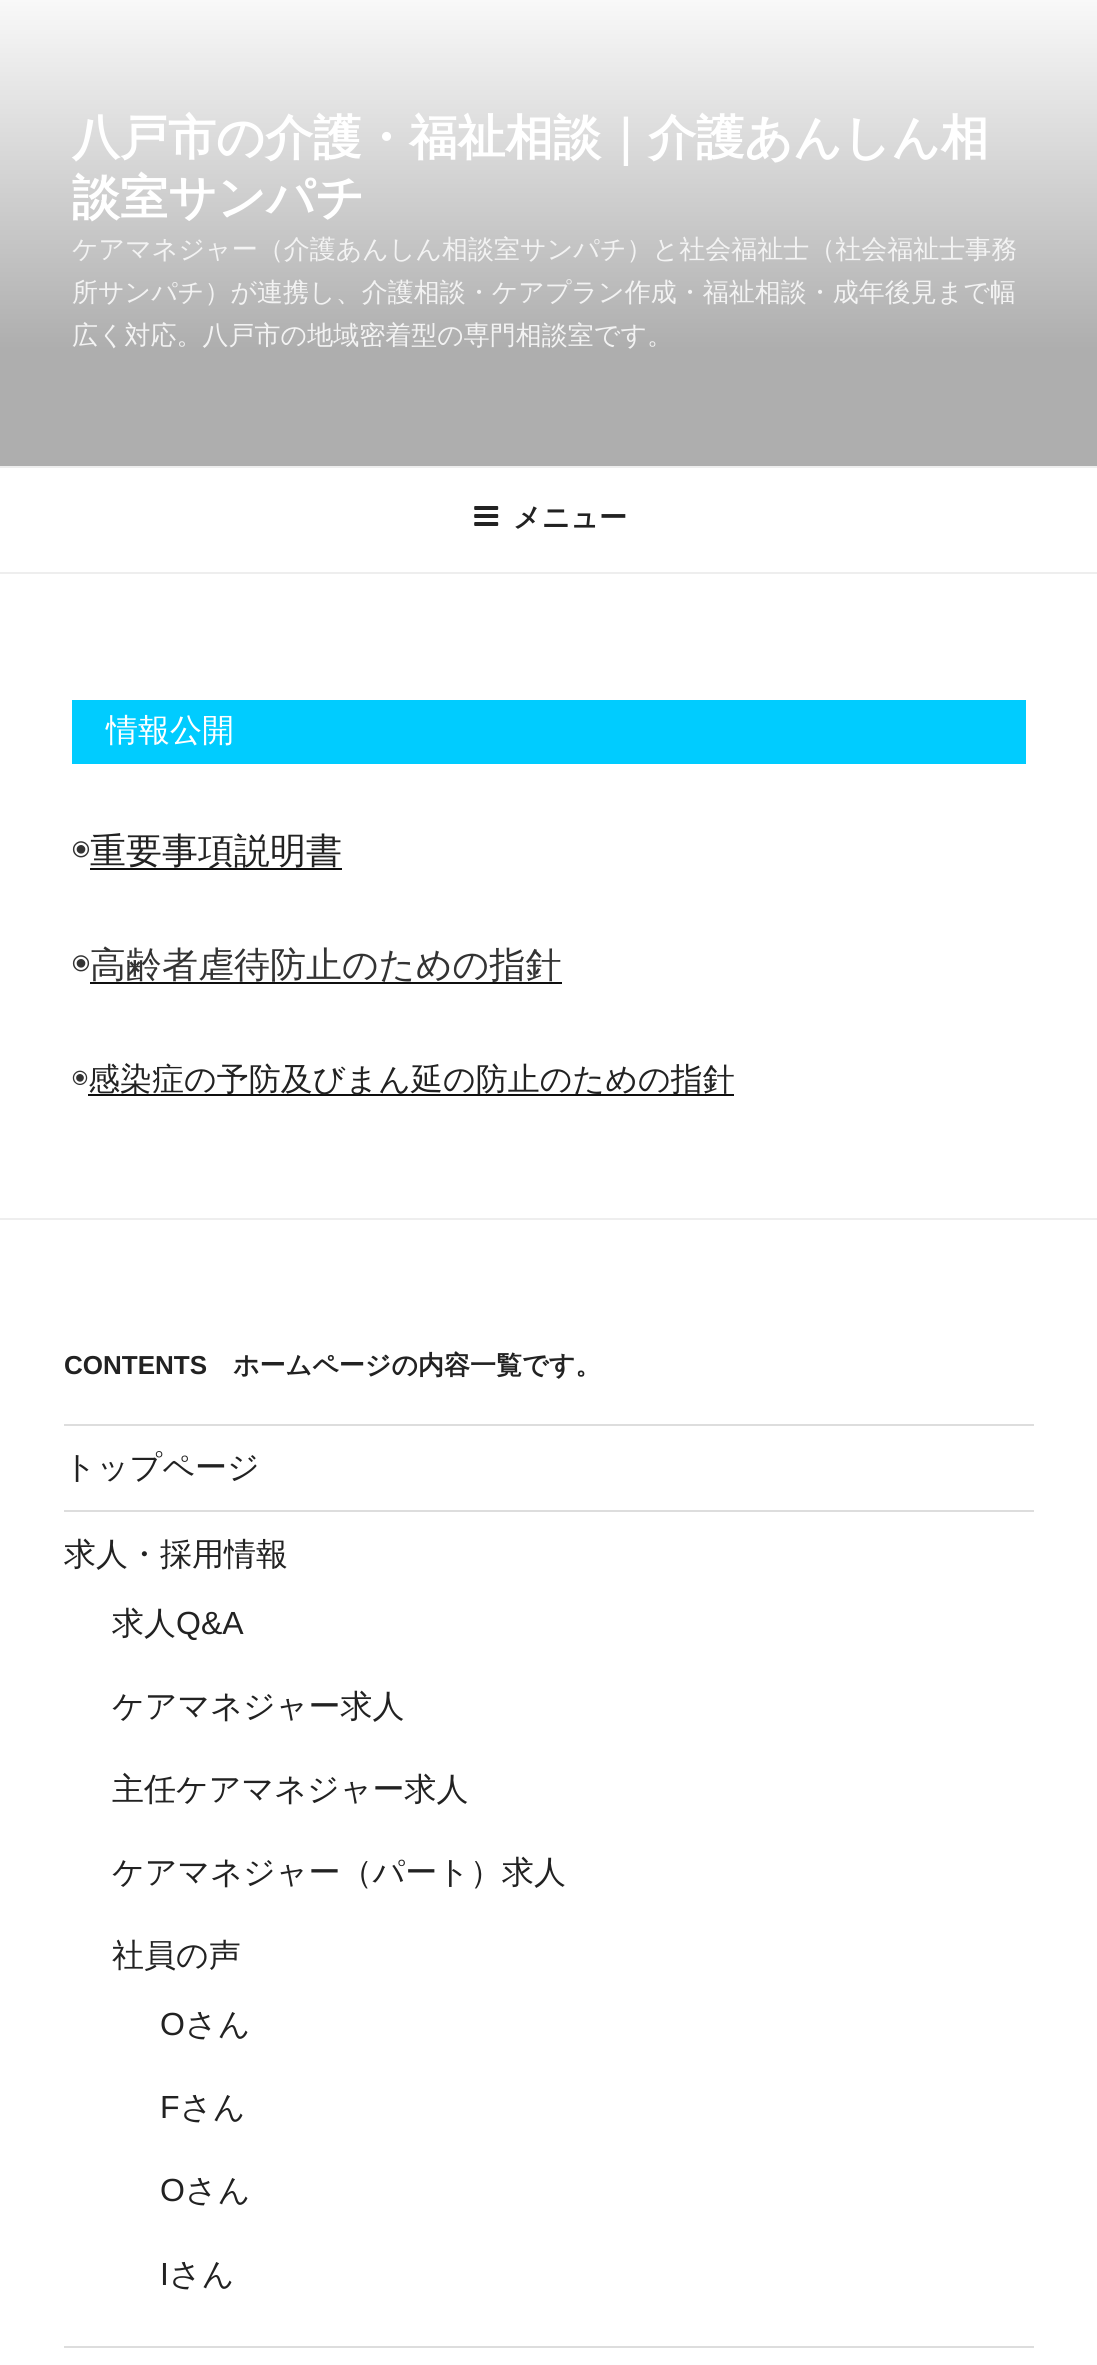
import math
import cairocffi as cairo

surface = cairo.ImageSurface(cairo.FORMAT_RGB24, 1097, 2365)
cr = cairo.Context(surface)
options = cairo.FontOptions()
options.set_hint_metrics(cairo.HINT_METRICS_OFF)
options.set_hint_style(cairo.HINT_STYLE_NONE)
cr.set_font_options(options)
cr.set_miter_limit(4)


def use_color(code):
    cr.set_source_rgb(*(v / 255 for v in bytes.fromhex(code[-6:])))


def picture(path, x, y, w, h):
    cr.save()
    cr.set_source_surface(cairo.ImageSurface.create_from_png(path), x, y)
    cr.rectangle(x, y, w, h)
    cr.fill()
    cr.restore()


use_color("#ffffff")
cr.paint()
gradient = cairo.LinearGradient(549, 0, 549, 466)
gradient.add_color_stop_rgba(0, 0.976, 0.976, 0.976, 1)
gradient.add_color_stop_rgba(0.75, 0.682, 0.682, 0.682, 1)
gradient.add_color_stop_rgba(1, 0.682, 0.682, 0.682, 1)
cr.set_source(gradient)
cr.rectangle(0, 0, 1097, 466)
cr.fill()
cr.select_font_face("WenQuanYi Zen Hei", cairo.FONT_SLANT_NORMAL, cairo.FONT_WEIGHT_BOLD)
cr.set_font_size(48)
use_color("#ffffff")
cr.move_to(72, 154)
cr.show_text("八戸市の介護・福祉相談｜介護あんしん相")
cr.move_to(72, 214)
cr.show_text("談室サンパチ")
cr.select_font_face("WenQuanYi Zen Hei Medium")
cr.set_font_size(26)
use_color("#f3f3f3")
cr.move_to(72, 258)
cr.show_text("ケアマネジャー（介護あんしん相談室サンパチ）と社会福祉士（社会福祉士事務")
cr.move_to(72, 301)
cr.show_text("所サンパチ）が連携し、介護相談・ケアプラン作成・福祉相談・成年後見まで幅")
cr.move_to(72, 344)
cr.show_text("広く対応。八戸市の地域密着型の専門相談室です。")
use_color("#eeeeee")
cr.rectangle(0, 466, 1097, 2)
cr.fill()
cr.rectangle(0, 572, 1097, 2)
cr.fill()
picture("img1.png", 474, 506, 25, 20)
cr.select_font_face("WenQuanYi Zen Hei", cairo.FONT_SLANT_NORMAL, cairo.FONT_WEIGHT_BOLD)
cr.set_font_size(28)
use_color("#222222")
cr.move_to(513, 527)
cr.show_text("メニュー")
use_color("#00ccff")
cr.rectangle(72, 700, 954, 64)
cr.fill()
cr.select_font_face("WenQuanYi Zen Hei Medium")
cr.set_font_size(32)
use_color("#ffffff")
cr.move_to(106, 741)
cr.show_text("情報公開")
cr.select_font_face("IPAPGothic")
cr.set_font_size(36)
use_color("#333333")
cr.move_to(72, 863)
cr.show_text("◉")
use_color("#0f0f0f")
cr.rectangle(90, 868, 252, 2)
cr.fill()
cr.select_font_face("WenQuanYi Zen Hei Medium")
use_color("#222222")
cr.move_to(90, 863)
cr.show_text("重要事項説明書")
cr.select_font_face("IPAPGothic")
use_color("#333333")
cr.move_to(72, 977)
cr.show_text("◉")
cr.select_font_face("WenQuanYi Zen Hei Medium")
cr.move_to(90, 977)
cr.show_text("高齢者虐待防止のための指針")
use_color("#0f0f0f")
cr.rectangle(90, 982, 472, 2)
cr.fill()
cr.select_font_face("IPAPGothic")
cr.set_font_size(32)
use_color("#333333")
cr.move_to(72, 1090)
cr.show_text("◉")
use_color("#0f0f0f")
cr.rectangle(88, 1094, 646, 2)
cr.fill()
cr.select_font_face("WenQuanYi Zen Hei Medium")
use_color("#222222")
cr.move_to(88, 1090)
cr.show_text("感染症の予防及びまん延の防止のための指針")
use_color("#eeeeee")
cr.rectangle(0, 1218, 1097, 2)
cr.fill()
cr.select_font_face("Liberation Sans", cairo.FONT_SLANT_NORMAL, cairo.FONT_WEIGHT_BOLD)
cr.set_font_size(26)
use_color("#222222")
cr.move_to(64, 1374)
cr.show_text("CONTENTS")
cr.select_font_face("WenQuanYi Zen Hei", cairo.FONT_SLANT_NORMAL, cairo.FONT_WEIGHT_BOLD)
cr.move_to(233, 1374)
cr.show_text("ホームページの内容一覧です。")
use_color("#dddddd")
cr.rectangle(64, 1424, 970, 2)
cr.fill()
cr.rectangle(64, 1510, 970, 2)
cr.fill()
cr.select_font_face("WenQuanYi Zen Hei Medium")
cr.set_font_size(32)
use_color("#222222")
cr.move_to(64, 1478)
cr.show_text("トップページ")
use_color("#dddddd")
cr.rectangle(64, 2346, 970, 2)
cr.fill()
use_color("#222222")
cr.move_to(64, 1565)
cr.show_text("求人・採用情報")
cr.move_to(112, 1634)
cr.show_text("求人")
cr.select_font_face("Liberation Sans")
cr.move_to(176, 1634)
cr.show_text("Q&A")
cr.select_font_face("WenQuanYi Zen Hei Medium")
cr.move_to(112, 1717)
cr.show_text("ケアマネジャー求人")
cr.move_to(112, 1800)
cr.show_text("主任ケアマネジャー求人")
cr.move_to(112, 1883)
cr.show_text("ケアマネジャー（パート）求人")
cr.move_to(112, 1966)
cr.show_text("社員の声")
cr.select_font_face("Liberation Sans")
cr.move_to(160, 2035)
cr.show_text("O")
cr.select_font_face("WenQuanYi Zen Hei Medium")
cr.move_to(185, 2035)
cr.show_text("さん")
cr.select_font_face("Liberation Sans")
cr.move_to(160, 2118)
cr.show_text("F")
cr.select_font_face("WenQuanYi Zen Hei Medium")
cr.move_to(180, 2118)
cr.show_text("さん")
cr.select_font_face("Liberation Sans")
cr.move_to(160, 2201)
cr.show_text("O")
cr.select_font_face("WenQuanYi Zen Hei Medium")
cr.move_to(185, 2201)
cr.show_text("さん")
cr.select_font_face("Liberation Sans")
cr.move_to(160, 2285)
cr.show_text("I")
cr.select_font_face("WenQuanYi Zen Hei Medium")
cr.move_to(169, 2285)
cr.show_text("さん")
surface.write_to_png("result.png")
